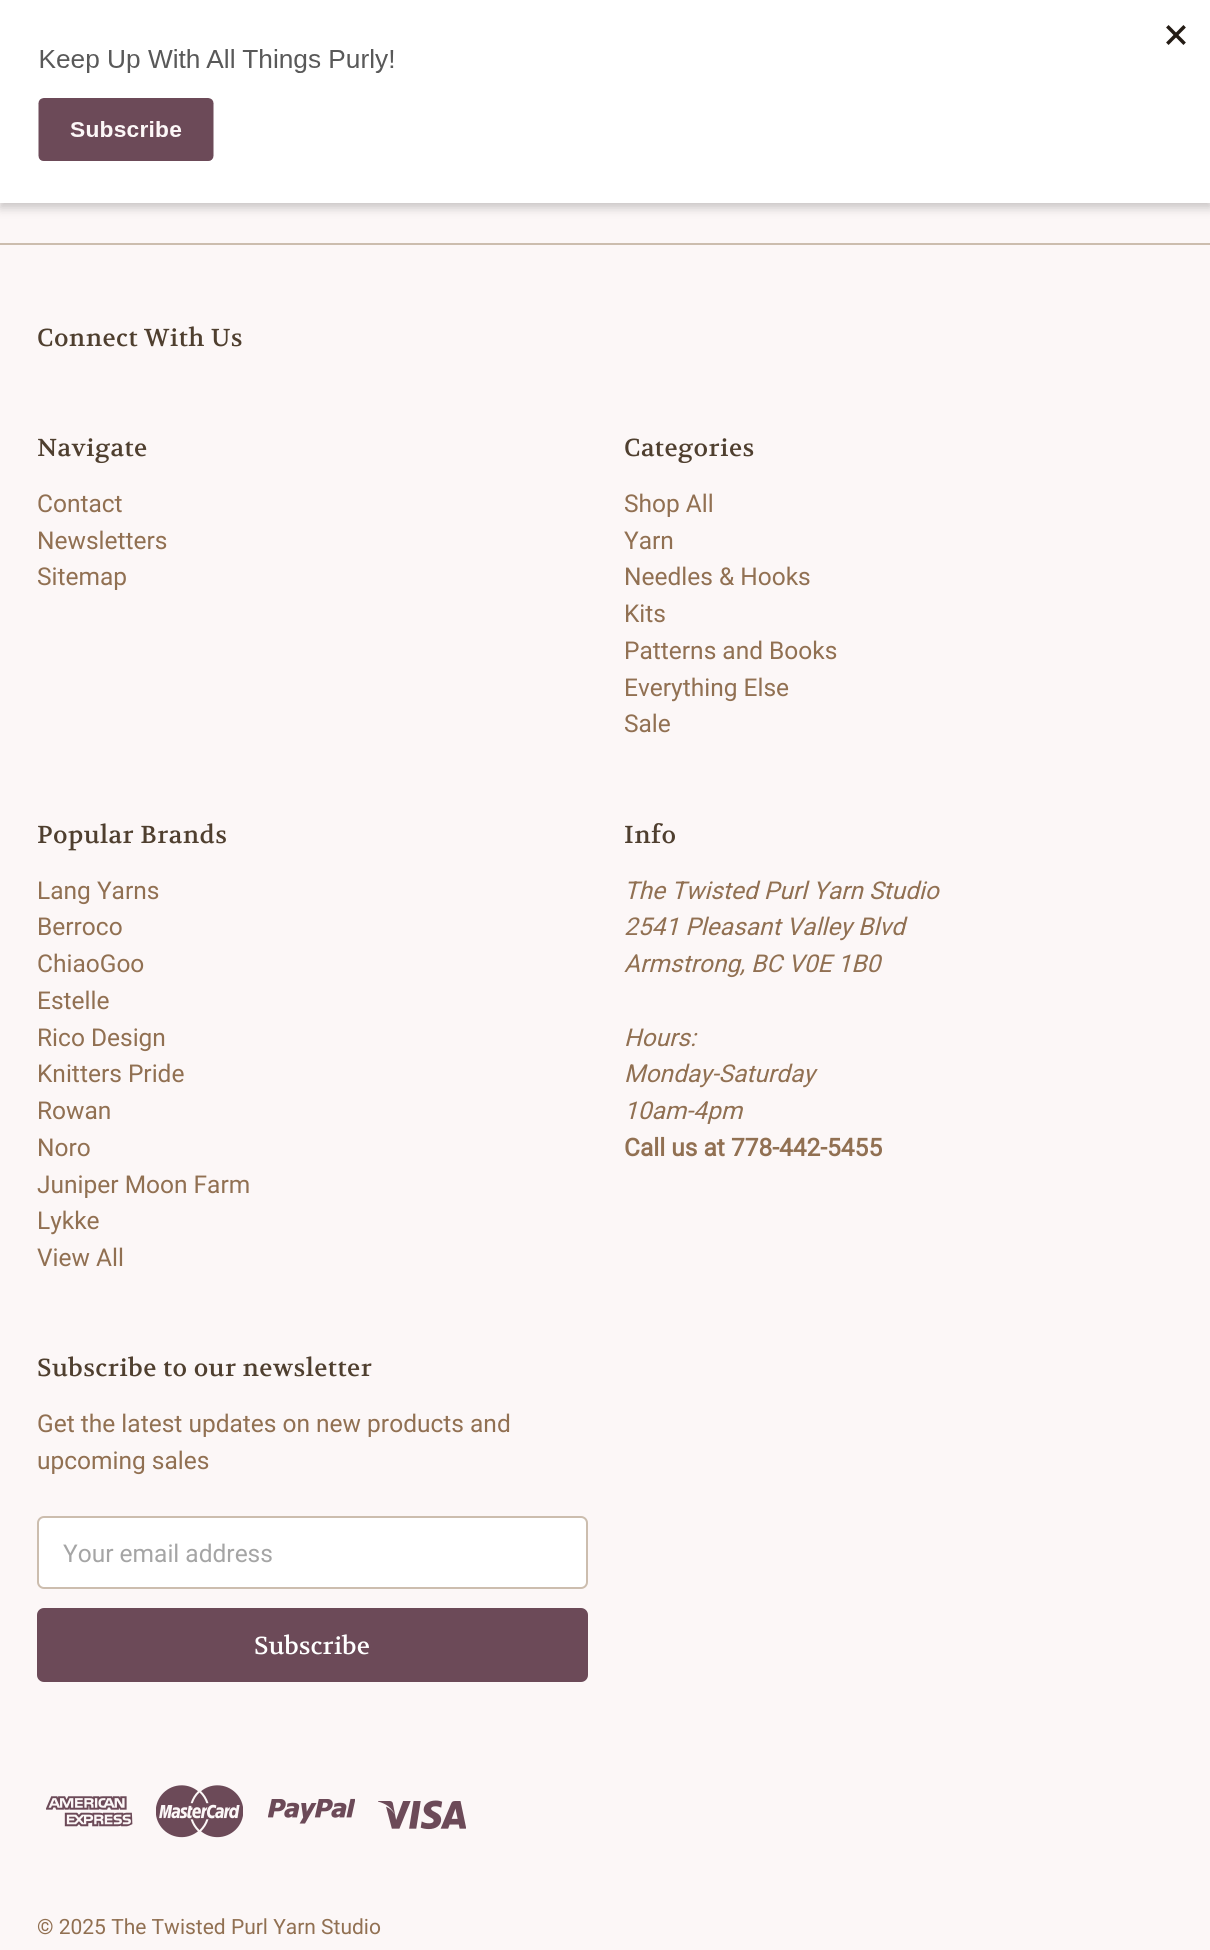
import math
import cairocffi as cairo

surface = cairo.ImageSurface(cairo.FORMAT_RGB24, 1210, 1950)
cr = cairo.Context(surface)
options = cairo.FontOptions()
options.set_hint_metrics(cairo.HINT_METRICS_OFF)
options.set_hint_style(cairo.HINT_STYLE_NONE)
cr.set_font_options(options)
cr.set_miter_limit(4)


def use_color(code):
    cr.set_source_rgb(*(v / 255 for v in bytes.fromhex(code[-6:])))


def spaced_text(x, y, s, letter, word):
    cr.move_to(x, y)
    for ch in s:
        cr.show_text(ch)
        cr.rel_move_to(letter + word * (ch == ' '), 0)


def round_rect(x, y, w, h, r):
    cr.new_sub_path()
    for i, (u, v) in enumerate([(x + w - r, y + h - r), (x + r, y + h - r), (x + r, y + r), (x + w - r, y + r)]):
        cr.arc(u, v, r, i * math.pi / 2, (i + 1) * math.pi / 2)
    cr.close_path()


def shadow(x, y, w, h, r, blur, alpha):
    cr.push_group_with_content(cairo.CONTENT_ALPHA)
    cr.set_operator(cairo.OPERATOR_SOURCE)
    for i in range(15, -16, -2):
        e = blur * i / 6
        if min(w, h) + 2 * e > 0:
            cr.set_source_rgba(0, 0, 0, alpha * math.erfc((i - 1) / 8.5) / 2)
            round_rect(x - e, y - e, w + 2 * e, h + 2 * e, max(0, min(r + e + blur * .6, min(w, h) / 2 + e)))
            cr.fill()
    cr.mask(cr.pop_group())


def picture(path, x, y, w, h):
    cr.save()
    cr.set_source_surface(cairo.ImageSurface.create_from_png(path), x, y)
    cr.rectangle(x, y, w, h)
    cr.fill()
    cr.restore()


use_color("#fcf7f7")
cr.paint()
use_color("#000000")
shadow(0, 5, 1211, 203, 0, 5, 0.2)
use_color("#ffffff")
cr.rectangle(0, 0, 1210, 203)
cr.fill()
picture("img1.png", 38, 25, 1148, 136)
use_color("#ccbdae")
cr.rectangle(0, 243, 1210, 2)
cr.fill()
cr.select_font_face("Volkhov")
cr.set_font_size(24.5)
use_color("#4f3f2f")
spaced_text(37, 346, "Connect With Us", 0.45, 0)
spaced_text(37, 456, "Navigate", 0.45, 0)
cr.select_font_face("Roboto")
use_color("#917052")
cr.move_to(37, 512)
cr.show_text("Contact")
cr.move_to(37, 549)
cr.show_text("Newsletters")
cr.move_to(37, 585)
cr.show_text("Sitemap")
cr.select_font_face("Volkhov")
use_color("#4f3f2f")
spaced_text(624, 456, "Categories", 0.45, 0)
cr.select_font_face("Roboto")
use_color("#917052")
cr.move_to(624, 512)
cr.show_text("Shop All")
cr.move_to(624, 549)
cr.show_text("Yarn")
cr.move_to(624, 585)
cr.show_text("Needles & Hooks")
cr.move_to(624, 622)
cr.show_text("Kits")
cr.move_to(624, 659)
cr.show_text("Patterns and Books")
cr.move_to(624, 696)
cr.show_text("Everything Else")
cr.move_to(624, 732)
cr.show_text("Sale")
cr.select_font_face("Volkhov")
use_color("#4f3f2f")
spaced_text(37, 843, "Popular Brands", 0.45, 0)
cr.select_font_face("Roboto")
use_color("#917052")
cr.move_to(37, 899)
cr.show_text("Lang Yarns")
cr.move_to(37, 935)
cr.show_text("Berroco")
cr.move_to(37, 972)
cr.show_text("ChiaoGoo")
cr.move_to(37, 1009)
cr.show_text("Estelle")
cr.move_to(37, 1046)
cr.show_text("Rico Design")
cr.move_to(37, 1082)
cr.show_text("Knitters Pride")
cr.move_to(37, 1119)
cr.show_text("Rowan")
cr.move_to(37, 1156)
cr.show_text("Noro")
cr.move_to(37, 1193)
cr.show_text("Juniper Moon Farm")
cr.move_to(37, 1229)
cr.show_text("Lykke")
cr.move_to(37, 1266)
cr.show_text("View All")
cr.select_font_face("Volkhov")
use_color("#4f3f2f")
spaced_text(624, 843, "Info", 0.45, 0)
cr.select_font_face("Roboto", cairo.FONT_SLANT_ITALIC)
use_color("#917052")
cr.move_to(624, 899)
cr.show_text("The Twisted Purl Yarn Studio")
cr.move_to(624, 935)
cr.show_text("2541 Pleasant Valley Blvd")
cr.move_to(624, 972)
cr.show_text("Armstrong, BC V0E 1B0")
cr.move_to(624, 1046)
cr.show_text("Hours:")
cr.move_to(624, 1082)
cr.show_text("Monday-Saturday")
cr.move_to(624, 1119)
cr.show_text("10am-4pm")
cr.select_font_face("Roboto", cairo.FONT_SLANT_NORMAL, cairo.FONT_WEIGHT_BOLD)
cr.move_to(624, 1156)
cr.show_text("Call us at 778-442-5455")
cr.select_font_face("Volkhov")
use_color("#4f3f2f")
spaced_text(37, 1376, "Subscribe to our newsletter", 0.45, 0)
cr.select_font_face("Roboto")
use_color("#917052")
cr.move_to(37, 1432)
cr.show_text("Get the latest updates on new products and")
cr.move_to(37, 1469)
cr.show_text("upcoming sales")
use_color("#ffffff")
round_rect(38, 1517, 549, 71, 6)
cr.fill_preserve()
use_color("#ccbdae")
cr.stroke()
use_color("#a5a5a5")
cr.move_to(63, 1562)
cr.show_text("Your email address")
use_color("#6c4a58")
round_rect(38, 1609, 549, 72, 6)
cr.fill_preserve()
cr.stroke()
cr.select_font_face("Volkhov")
use_color("#ffffff")
cr.move_to(254, 1654)
cr.show_text("Subscribe")
picture("img2.png", 46, 1796, 87, 31)
picture("img3.png", 156, 1785, 87, 53)
picture("img4.png", 268, 1798, 87, 26)
picture("img5.png", 378, 1800, 88, 30)
cr.select_font_face("Roboto")
cr.set_font_size(21)
use_color("#917052")
cr.move_to(37, 1934)
cr.show_text("© 2025 The Twisted Purl Yarn Studio")
surface.write_to_png("result.png")
